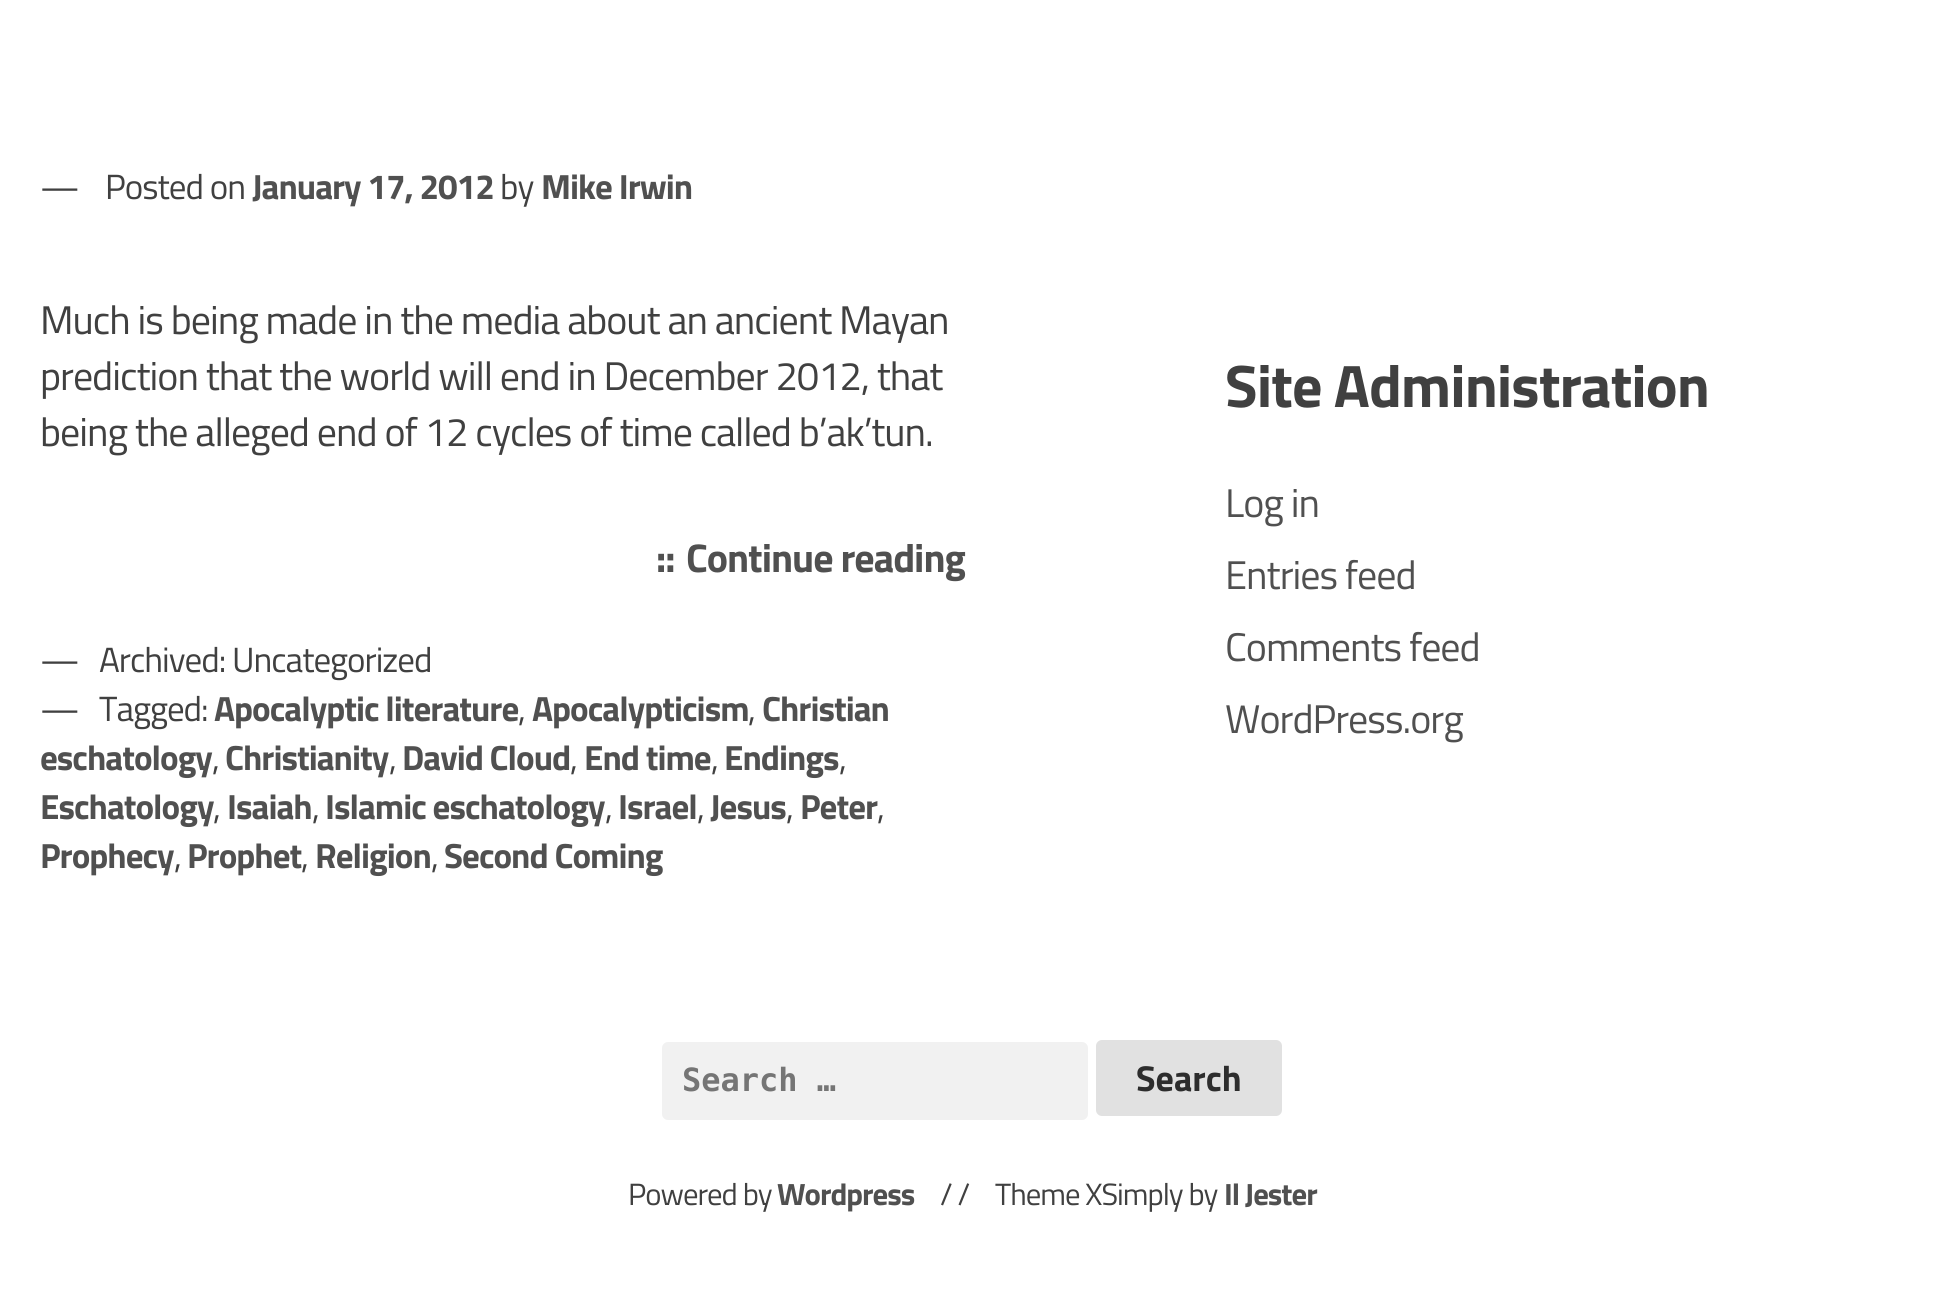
import math
import cairocffi as cairo

surface = cairo.ImageSurface(cairo.FORMAT_RGB24, 1944, 1296)
cr = cairo.Context(surface)
options = cairo.FontOptions()
options.set_hint_metrics(cairo.HINT_METRICS_OFF)
options.set_hint_style(cairo.HINT_STYLE_NONE)
cr.set_font_options(options)
cr.set_miter_limit(4)


def use_color(code):
    cr.set_source_rgb(*(v / 255 for v in bytes.fromhex(code[-6:])))


def spaced_text(x, y, s, letter, word):
    cr.move_to(x, y)
    for ch in s:
        cr.show_text(ch)
        cr.rel_move_to(letter + word * (ch == ' '), 0)


def round_rect(x, y, w, h, r):
    cr.new_sub_path()
    for i, (u, v) in enumerate([(x + w - r, y + h - r), (x + r, y + h - r), (x + r, y + r), (x + w - r, y + r)]):
        cr.arc(u, v, r, i * math.pi / 2, (i + 1) * math.pi / 2)
    cr.close_path()


use_color("#ffffff")
cr.paint()
cr.select_font_face("Titillium Web")
cr.set_font_size(35)
use_color("#404040")
spaced_text(40, 199, "—", -1, 0)
spaced_text(105, 199, "Posted on", -1, 0)
cr.select_font_face("Titillium Web", cairo.FONT_SLANT_NORMAL, cairo.FONT_WEIGHT_BOLD)
use_color("#505050")
spaced_text(252, 199, "January 17, 2012", -1, 0)
cr.select_font_face("Titillium Web")
use_color("#404040")
spaced_text(500, 199, "by", -1, 0)
cr.select_font_face("Titillium Web", cairo.FONT_SLANT_NORMAL, cairo.FONT_WEIGHT_BOLD)
use_color("#505050")
spaced_text(541, 199, "Mike Irwin", -1, 0)
cr.select_font_face("Titillium Web")
cr.set_font_size(40)
use_color("#404040")
spaced_text(40, 334, "Much is being made in the media about an ancient Mayan", -1, 0)
spaced_text(40, 390, "prediction that the world will end in December 2012, that", -1, 0)
spaced_text(40, 446, "being the alleged end of 12 cycles of time called b’ak’tun.", -1, 0)
cr.select_font_face("Titillium Web", cairo.FONT_SLANT_NORMAL, cairo.FONT_WEIGHT_BOLD)
use_color("#505050")
spaced_text(656, 572, "::", -1, 0)
spaced_text(686, 572, "Continue reading", -1, 0)
cr.select_font_face("Titillium Web")
cr.set_font_size(35)
use_color("#404040")
spaced_text(40, 672, "—", -1, 0)
spaced_text(99, 672, "Archived: Uncategorized", -1, 0)
spaced_text(40, 721, "—", -1, 0)
spaced_text(99, 721, "Tagged:", -1, 0)
cr.select_font_face("Titillium Web", cairo.FONT_SLANT_NORMAL, cairo.FONT_WEIGHT_BOLD)
use_color("#505050")
spaced_text(214, 721, "Apocalyptic literature", -1, 0)
spaced_text(532, 721, "Apocalypticism", -1, 0)
spaced_text(762, 721, "Christian", -1, 0)
cr.select_font_face("Titillium Web")
use_color("#404040")
spaced_text(518, 721, ",", -1, 0)
spaced_text(748, 721, ",", -1, 0)
cr.select_font_face("Titillium Web", cairo.FONT_SLANT_NORMAL, cairo.FONT_WEIGHT_BOLD)
use_color("#505050")
spaced_text(40, 770, "eschatology", -1, 0)
cr.select_font_face("Titillium Web")
use_color("#404040")
spaced_text(212, 770, ",", -1, 0)
cr.select_font_face("Titillium Web", cairo.FONT_SLANT_NORMAL, cairo.FONT_WEIGHT_BOLD)
use_color("#505050")
spaced_text(225, 770, "Christianity", -1, 0)
cr.select_font_face("Titillium Web")
use_color("#404040")
spaced_text(389, 770, ",", -1, 0)
cr.select_font_face("Titillium Web", cairo.FONT_SLANT_NORMAL, cairo.FONT_WEIGHT_BOLD)
use_color("#505050")
spaced_text(402, 770, "David Cloud", -1, 0)
cr.select_font_face("Titillium Web")
use_color("#404040")
spaced_text(570, 770, ",", -1, 0)
cr.select_font_face("Titillium Web", cairo.FONT_SLANT_NORMAL, cairo.FONT_WEIGHT_BOLD)
use_color("#505050")
spaced_text(584, 770, "End time", -1, 0)
cr.select_font_face("Titillium Web")
use_color("#404040")
spaced_text(711, 770, ",", -1, 0)
cr.select_font_face("Titillium Web", cairo.FONT_SLANT_NORMAL, cairo.FONT_WEIGHT_BOLD)
use_color("#505050")
spaced_text(724, 770, "Endings", -1, 0)
cr.select_font_face("Titillium Web")
use_color("#404040")
spaced_text(839, 770, ",", -1, 0)
cr.select_font_face("Titillium Web", cairo.FONT_SLANT_NORMAL, cairo.FONT_WEIGHT_BOLD)
use_color("#505050")
spaced_text(40, 819, "Eschatology", -1, 0)
cr.select_font_face("Titillium Web")
use_color("#404040")
spaced_text(213, 819, ",", -1, 0)
cr.select_font_face("Titillium Web", cairo.FONT_SLANT_NORMAL, cairo.FONT_WEIGHT_BOLD)
use_color("#505050")
spaced_text(227, 819, "Isaiah", -1, 0)
cr.select_font_face("Titillium Web")
use_color("#404040")
spaced_text(312, 819, ",", -1, 0)
cr.select_font_face("Titillium Web", cairo.FONT_SLANT_NORMAL, cairo.FONT_WEIGHT_BOLD)
use_color("#505050")
spaced_text(325, 819, "Islamic eschatology", -1, 0)
cr.select_font_face("Titillium Web")
use_color("#404040")
spaced_text(605, 819, ",", -1, 0)
cr.select_font_face("Titillium Web", cairo.FONT_SLANT_NORMAL, cairo.FONT_WEIGHT_BOLD)
use_color("#505050")
spaced_text(618, 819, "Israel", -1, 0)
cr.select_font_face("Titillium Web")
use_color("#404040")
spaced_text(697, 819, ",", -1, 0)
cr.select_font_face("Titillium Web", cairo.FONT_SLANT_NORMAL, cairo.FONT_WEIGHT_BOLD)
use_color("#505050")
spaced_text(710, 819, "Jesus", -1, 0)
cr.select_font_face("Titillium Web")
use_color("#404040")
spaced_text(786, 819, ",", -1, 0)
cr.select_font_face("Titillium Web", cairo.FONT_SLANT_NORMAL, cairo.FONT_WEIGHT_BOLD)
use_color("#505050")
spaced_text(800, 819, "Peter", -1, 0)
cr.select_font_face("Titillium Web")
use_color("#404040")
spaced_text(877, 819, ",", -1, 0)
cr.select_font_face("Titillium Web", cairo.FONT_SLANT_NORMAL, cairo.FONT_WEIGHT_BOLD)
use_color("#505050")
spaced_text(40, 868, "Prophecy", -1, 0)
cr.select_font_face("Titillium Web")
use_color("#404040")
spaced_text(174, 868, ",", -1, 0)
cr.select_font_face("Titillium Web", cairo.FONT_SLANT_NORMAL, cairo.FONT_WEIGHT_BOLD)
use_color("#505050")
spaced_text(187, 868, "Prophet", -1, 0)
cr.select_font_face("Titillium Web")
use_color("#404040")
spaced_text(301, 868, ",", -1, 0)
cr.select_font_face("Titillium Web", cairo.FONT_SLANT_NORMAL, cairo.FONT_WEIGHT_BOLD)
use_color("#505050")
spaced_text(315, 868, "Religion", -1, 0)
cr.select_font_face("Titillium Web")
use_color("#404040")
spaced_text(431, 868, ",", -1, 0)
cr.select_font_face("Titillium Web", cairo.FONT_SLANT_NORMAL, cairo.FONT_WEIGHT_BOLD)
use_color("#505050")
spaced_text(444, 868, "Second Coming", -1, 0)
cr.set_font_size(60)
use_color("#404040")
spaced_text(1225, 407, "Site Administration", -1, 0)
cr.select_font_face("Titillium Web")
cr.set_font_size(40)
use_color("#505050")
spaced_text(1225, 517, "Log in", -1, 0)
spaced_text(1225, 589, "Entries feed", -1, 0)
spaced_text(1225, 661, "Comments feed", -1, 0)
spaced_text(1225, 733, "WordPress.org", -1, 0)
use_color("#f1f1f1")
round_rect(662, 1042, 426, 78, 6)
cr.fill()
cr.select_font_face("DejaVu Sans Mono", cairo.FONT_SLANT_NORMAL, cairo.FONT_WEIGHT_BOLD)
cr.set_font_size(32)
use_color("#757575")
cr.move_to(682, 1091)
cr.show_text("Search …")
use_color("#e1e1e1")
round_rect(1096, 1040, 186, 76, 6)
cr.fill()
cr.select_font_face("Titillium Web", cairo.FONT_SLANT_NORMAL, cairo.FONT_WEIGHT_BOLD)
cr.set_font_size(36)
use_color("#2d2d2d")
cr.move_to(1136, 1091)
cr.show_text("Search")
cr.select_font_face("Titillium Web")
cr.set_font_size(30.75)
use_color("#404040")
spaced_text(628, 1205, "Powered by", -1, 0)
cr.select_font_face("Titillium Web", cairo.FONT_SLANT_NORMAL, cairo.FONT_WEIGHT_BOLD)
use_color("#505050")
spaced_text(777, 1205, "Wordpress", -1, 0)
cr.select_font_face("Titillium Web")
use_color("#404040")
spaced_text(940, 1205, "/ /", -1, 0)
spaced_text(995, 1205, "Theme XSimply by", -1, 0)
cr.select_font_face("Titillium Web", cairo.FONT_SLANT_NORMAL, cairo.FONT_WEIGHT_BOLD)
use_color("#505050")
spaced_text(1224, 1205, "Il Jester", -1, 0)
surface.write_to_png("result.png")
